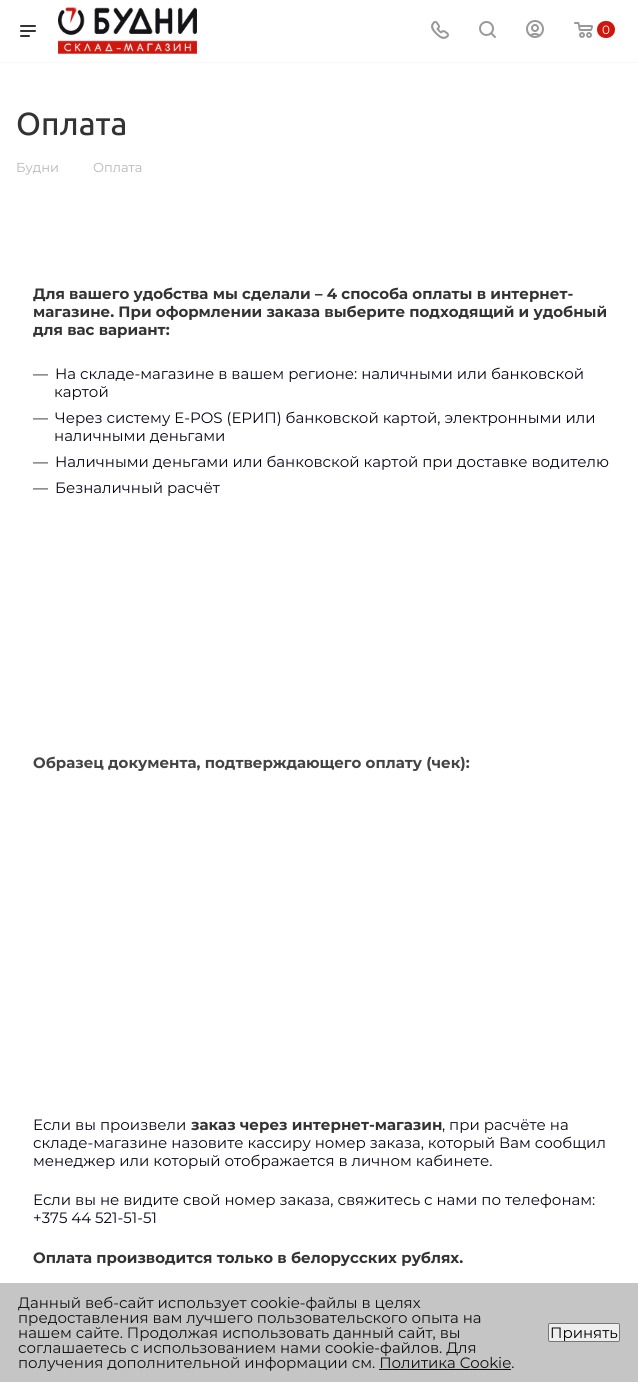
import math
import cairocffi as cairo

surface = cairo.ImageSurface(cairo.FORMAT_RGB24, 638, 1382)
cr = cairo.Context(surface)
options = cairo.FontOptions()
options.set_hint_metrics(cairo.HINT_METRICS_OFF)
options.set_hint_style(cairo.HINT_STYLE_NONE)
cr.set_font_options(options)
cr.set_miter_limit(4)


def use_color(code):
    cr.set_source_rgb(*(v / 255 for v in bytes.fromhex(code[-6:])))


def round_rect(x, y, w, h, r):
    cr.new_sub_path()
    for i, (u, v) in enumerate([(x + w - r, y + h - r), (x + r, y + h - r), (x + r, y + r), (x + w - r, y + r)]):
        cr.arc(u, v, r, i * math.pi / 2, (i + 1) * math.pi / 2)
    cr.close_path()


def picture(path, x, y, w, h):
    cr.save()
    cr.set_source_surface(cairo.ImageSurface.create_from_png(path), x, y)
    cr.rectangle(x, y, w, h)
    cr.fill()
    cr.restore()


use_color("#ffffff")
cr.paint()
use_color("#f8f8f8")
cr.rectangle(0, 62, 638, 1)
cr.fill()
picture("img1.png", 20, 25, 16, 12)
picture("img2.png", 58, 7, 139, 47)
picture("img3.png", 431, 21, 18, 18)
picture("img4.png", 479, 21, 17, 17)
picture("img5.png", 526, 20, 18, 18)
picture("img6.png", 574, 22, 19, 16)
use_color("#d0170e")
round_rect(597, 21, 18, 17, 8.5)
cr.fill()
cr.select_font_face("Montserrat")
cr.set_font_size(12)
use_color("#ffffff")
cr.move_to(602, 34)
cr.show_text("0")
cr.select_font_face("Ubuntu Medium")
cr.set_font_size(32)
use_color("#333333")
cr.move_to(16, 135)
cr.show_text("Оплата")
cr.select_font_face("Montserrat")
cr.set_font_size(13)
use_color("#b6b5b5")
cr.move_to(16, 172)
cr.show_text("Будни")
cr.move_to(93, 172)
cr.show_text("Оплата")
cr.select_font_face("Montserrat", cairo.FONT_SLANT_NORMAL, cairo.FONT_WEIGHT_BOLD)
cr.set_font_size(15)
use_color("#333333")
cr.move_to(33, 299)
cr.show_text("Для вашего удобства мы сделали – 4 способа оплаты в интернет-")
cr.move_to(33, 317)
cr.show_text("магазине. При оформлении заказа выберите подходящий и удобный")
cr.move_to(33, 335)
cr.show_text("для вас вариант:")
cr.select_font_face("Montserrat")
use_color("#080515")
cr.move_to(33, 379)
cr.show_text("—")
cr.move_to(55, 379)
cr.show_text("На складе-магазине в вашем регионе: наличными или банковской")
cr.move_to(54, 397)
cr.show_text("картой")
cr.move_to(33, 423)
cr.show_text("—")
cr.move_to(55, 423)
cr.show_text("Через систему E-POS (ЕРИП) банковской картой, электронными или")
cr.move_to(54, 441)
cr.show_text("наличными деньгами")
cr.move_to(33, 467)
cr.show_text("—")
cr.move_to(55, 467)
cr.show_text("Наличными деньгами или банковской картой при доставке водителю")
cr.move_to(33, 493)
cr.show_text("—")
cr.move_to(55, 493)
cr.show_text("Безналичный расчёт")
cr.select_font_face("Montserrat", cairo.FONT_SLANT_NORMAL, cairo.FONT_WEIGHT_BOLD)
use_color("#444444")
cr.move_to(33, 768)
cr.show_text("Образец документа, подтверждающего оплату (чек):")
cr.select_font_face("Montserrat")
use_color("#080515")
cr.move_to(33, 1130)
cr.show_text("Если вы произвели")
cr.select_font_face("Montserrat", cairo.FONT_SLANT_NORMAL, cairo.FONT_WEIGHT_BOLD)
use_color("#333333")
cr.move_to(191, 1130)
cr.show_text("заказ через интернет-магазин")
cr.select_font_face("Montserrat")
use_color("#080515")
cr.move_to(442, 1130)
cr.show_text(", при расчёте на")
cr.move_to(33, 1148)
cr.show_text("складе-магазине назовите кассиру номер заказа, который Вам сообщил")
cr.move_to(33, 1166)
cr.show_text("менеджер или который отображается в личном кабинете.")
cr.move_to(33, 1205)
cr.show_text("Если вы не видите свой номер заказа, свяжитесь с нами по телефонам:")
cr.move_to(33, 1223)
cr.show_text("+375 44 521-51-51")
cr.select_font_face("Montserrat", cairo.FONT_SLANT_NORMAL, cairo.FONT_WEIGHT_BOLD)
use_color("#333333")
cr.move_to(33, 1263)
cr.show_text("Оплата производится только в белорусских рублях.")
use_color("#c5c5c5")
cr.rectangle(0, 1283, 638, 99)
cr.fill()
cr.select_font_face("Montserrat")
use_color("#111111")
cr.move_to(18, 1308)
cr.show_text("Данный веб-сайт использует cookie-файлы в целях")
cr.move_to(18, 1323)
cr.show_text("предоставления вам лучшего пользовательского опыта на")
cr.move_to(18, 1338)
cr.show_text("нашем сайте. Продолжая использовать данный сайт, вы")
cr.move_to(18, 1353)
cr.show_text("соглашаетесь с использованием нами cookie-файлов. Для")
cr.move_to(18, 1368)
cr.show_text("получения дополнительной информации см. Политика Cookie.")
cr.rectangle(379, 1369, 132, 1)
cr.fill()
use_color("#efefef")
round_rect(548.5, 1323.5, 71, 18, 1.5)
cr.fill_preserve()
use_color("#767676")
cr.set_line_width(1)
cr.stroke()
use_color("#000000")
cr.move_to(550, 1338)
cr.show_text("Принять")
surface.write_to_png("result.png")
